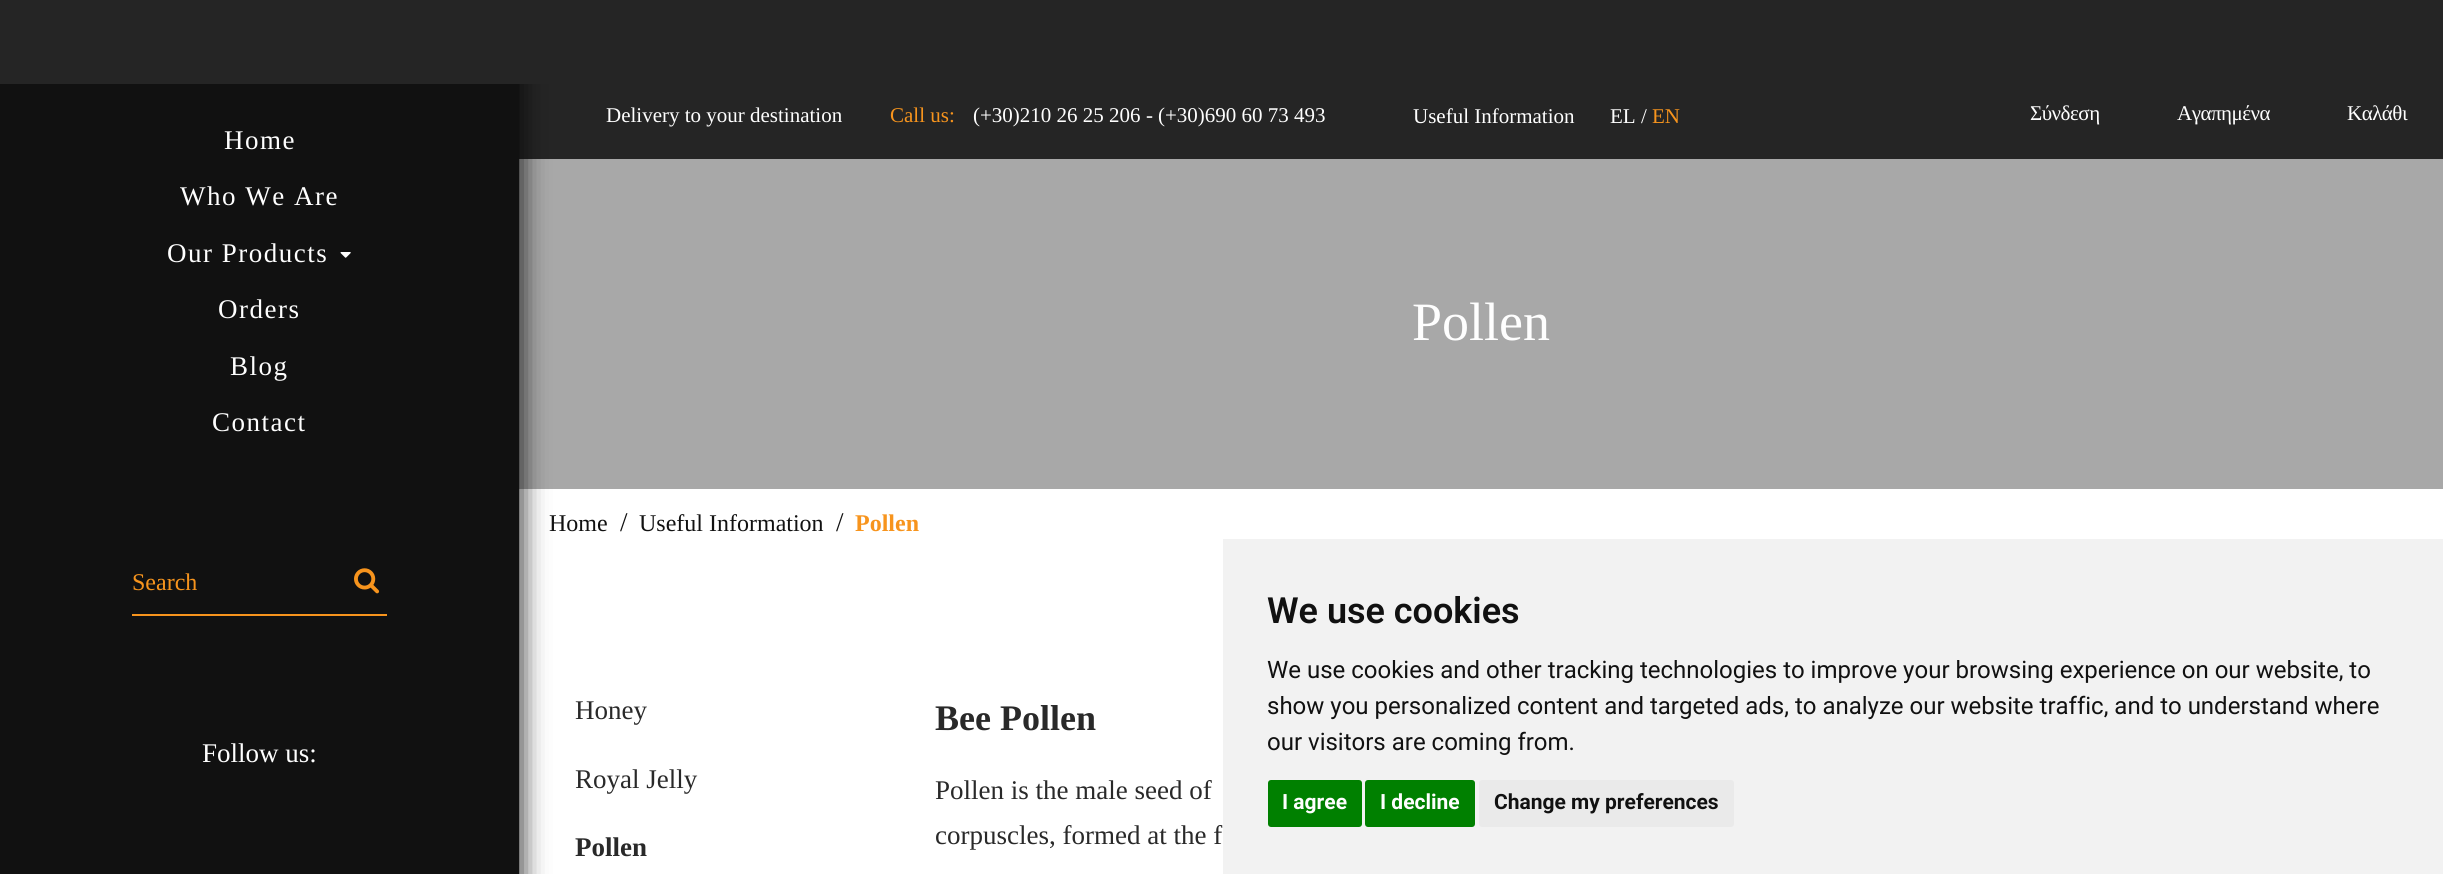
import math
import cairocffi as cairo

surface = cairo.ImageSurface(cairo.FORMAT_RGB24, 2443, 874)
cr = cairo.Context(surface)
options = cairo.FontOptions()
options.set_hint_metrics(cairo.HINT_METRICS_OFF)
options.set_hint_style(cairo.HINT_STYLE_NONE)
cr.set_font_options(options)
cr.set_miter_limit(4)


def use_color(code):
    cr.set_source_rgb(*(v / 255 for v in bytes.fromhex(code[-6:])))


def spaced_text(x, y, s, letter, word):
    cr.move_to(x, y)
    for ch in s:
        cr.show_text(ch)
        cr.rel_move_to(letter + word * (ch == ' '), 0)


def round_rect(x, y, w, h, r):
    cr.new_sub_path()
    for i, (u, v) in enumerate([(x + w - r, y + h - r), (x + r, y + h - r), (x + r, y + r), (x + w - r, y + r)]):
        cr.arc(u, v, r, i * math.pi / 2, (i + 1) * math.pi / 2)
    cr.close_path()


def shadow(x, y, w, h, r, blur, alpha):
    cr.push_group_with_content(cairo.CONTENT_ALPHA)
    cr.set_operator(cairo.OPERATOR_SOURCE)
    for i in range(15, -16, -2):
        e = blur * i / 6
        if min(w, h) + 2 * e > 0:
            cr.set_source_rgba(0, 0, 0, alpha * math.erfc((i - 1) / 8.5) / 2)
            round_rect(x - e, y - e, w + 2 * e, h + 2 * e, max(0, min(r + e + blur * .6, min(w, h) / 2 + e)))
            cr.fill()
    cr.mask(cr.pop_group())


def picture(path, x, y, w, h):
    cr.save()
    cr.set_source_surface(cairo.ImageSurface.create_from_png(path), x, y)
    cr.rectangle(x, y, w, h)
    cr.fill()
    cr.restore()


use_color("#ffffff")
cr.paint()
use_color("#252525")
cr.rectangle(519, 84, 1924, 75)
cr.fill()
use_color("#a8a8a8")
cr.rectangle(519, 159, 1924, 330)
cr.fill()
use_color("#060606")
shadow(-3, 3, 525, 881, 0, 12.5, 0.85)
use_color("#252525")
cr.rectangle(0, 0, 2443, 84)
cr.fill()
use_color("#111111")
cr.rectangle(0, 84, 519, 790)
cr.fill()
cr.select_font_face("Liberation Serif")
cr.set_font_size(27)
use_color("#fefefe")
spaced_text(224, 149, "Home", 1.5, 0)
spaced_text(180, 205, "Who We Are", 1.5, 0)
spaced_text(167, 262, "Our Products", 1.5, 0)
picture("img1.png", 340, 252, 11, 6)
spaced_text(218, 318, "Orders", 1.5, 0)
spaced_text(230, 375, "Blog", 1.5, 0)
spaced_text(212, 431, "Contact", 1.5, 0)
use_color("#f7941d")
cr.rectangle(132, 614, 255, 2)
cr.fill()
cr.set_font_size(24)
cr.move_to(132, 590)
cr.show_text("Search")
picture("img2.png", 354, 568, 26, 26)
cr.set_font_size(27)
use_color("#fefefe")
cr.move_to(202, 762)
cr.show_text("Follow us:")
cr.set_font_size(21)
cr.move_to(606, 122)
cr.show_text("Delivery to your destination")
use_color("#f7941d")
cr.move_to(890, 122)
cr.show_text("Call us:")
use_color("#fefefe")
cr.move_to(973, 122)
cr.show_text("(+30)210 26 25 206")
cr.move_to(1146, 122)
cr.show_text("-")
cr.move_to(1158, 122)
cr.show_text("(+30)690 60 73 493")
cr.move_to(1413, 123)
cr.show_text("Useful Information")
cr.move_to(1610, 123)
cr.show_text("EL /")
use_color("#f7941d")
cr.move_to(1652, 123)
cr.show_text("EN")
use_color("#fefefe")
spaced_text(2030, 120, "Σύνδεση", -0.5, 0)
spaced_text(2177, 120, "Αγαπημένα", -0.5, 0)
spaced_text(2347, 120, "Καλάθι", -0.5, 0)
cr.set_font_size(54)
cr.move_to(1412, 340)
cr.show_text("Pollen")
cr.set_font_size(24)
use_color("#111111")
cr.move_to(549, 531)
cr.show_text("Home")
cr.set_font_size(27)
cr.move_to(620, 531)
cr.show_text("/")
cr.set_font_size(24)
cr.move_to(639, 531)
cr.show_text("Useful Information")
cr.set_font_size(27)
cr.move_to(836, 531)
cr.show_text("/")
cr.select_font_face("Liberation Serif", cairo.FONT_SLANT_NORMAL, cairo.FONT_WEIGHT_BOLD)
cr.set_font_size(24)
use_color("#f7941d")
cr.move_to(855, 531)
cr.show_text("Pollen")
cr.select_font_face("Liberation Serif")
cr.set_font_size(27)
use_color("#292929")
cr.move_to(575, 719)
cr.show_text("Honey")
cr.move_to(575, 788)
cr.show_text("Royal Jelly")
cr.select_font_face("Liberation Serif", cairo.FONT_SLANT_NORMAL, cairo.FONT_WEIGHT_BOLD)
cr.move_to(575, 856)
cr.show_text("Pollen")
cr.set_font_size(36)
cr.move_to(935, 730)
cr.show_text("Bee Pollen")
cr.select_font_face("Liberation Serif")
cr.set_font_size(27)
cr.move_to(935, 799)
cr.show_text("Pollen is the male seed of")
cr.move_to(935, 844)
cr.show_text("corpuscles, formed at the f")
use_color("#f2f2f2")
cr.rectangle(1223, 539, 1220, 335)
cr.fill()
cr.select_font_face("Roboto SemiBold")
cr.set_font_size(36)
use_color("#111111")
cr.move_to(1267, 623)
cr.show_text("We use cookies")
cr.select_font_face("Roboto")
cr.set_font_size(24)
cr.move_to(1267, 678)
cr.show_text("We use cookies and other tracking technologies to improve your browsing experience on our website, to")
cr.move_to(1267, 714)
cr.show_text("show you personalized content and targeted ads, to analyze our website traffic, and to understand where")
cr.move_to(1267, 750)
cr.show_text("our visitors are coming from.")
use_color("#008000")
round_rect(1268, 780, 94, 47, 3)
cr.fill()
cr.select_font_face("Roboto", cairo.FONT_SLANT_NORMAL, cairo.FONT_WEIGHT_BOLD)
cr.set_font_size(21)
use_color("#fefefe")
cr.move_to(1282, 809)
cr.show_text("I agree")
use_color("#008000")
round_rect(1365, 780, 110, 47, 3)
cr.fill()
use_color("#fefefe")
cr.move_to(1380, 809)
cr.show_text("I decline")
use_color("#eaeaea")
round_rect(1479, 780, 255, 47, 3)
cr.fill()
use_color("#111111")
cr.move_to(1494, 809)
cr.show_text("Change my preferences")
surface.write_to_png("result.png")
